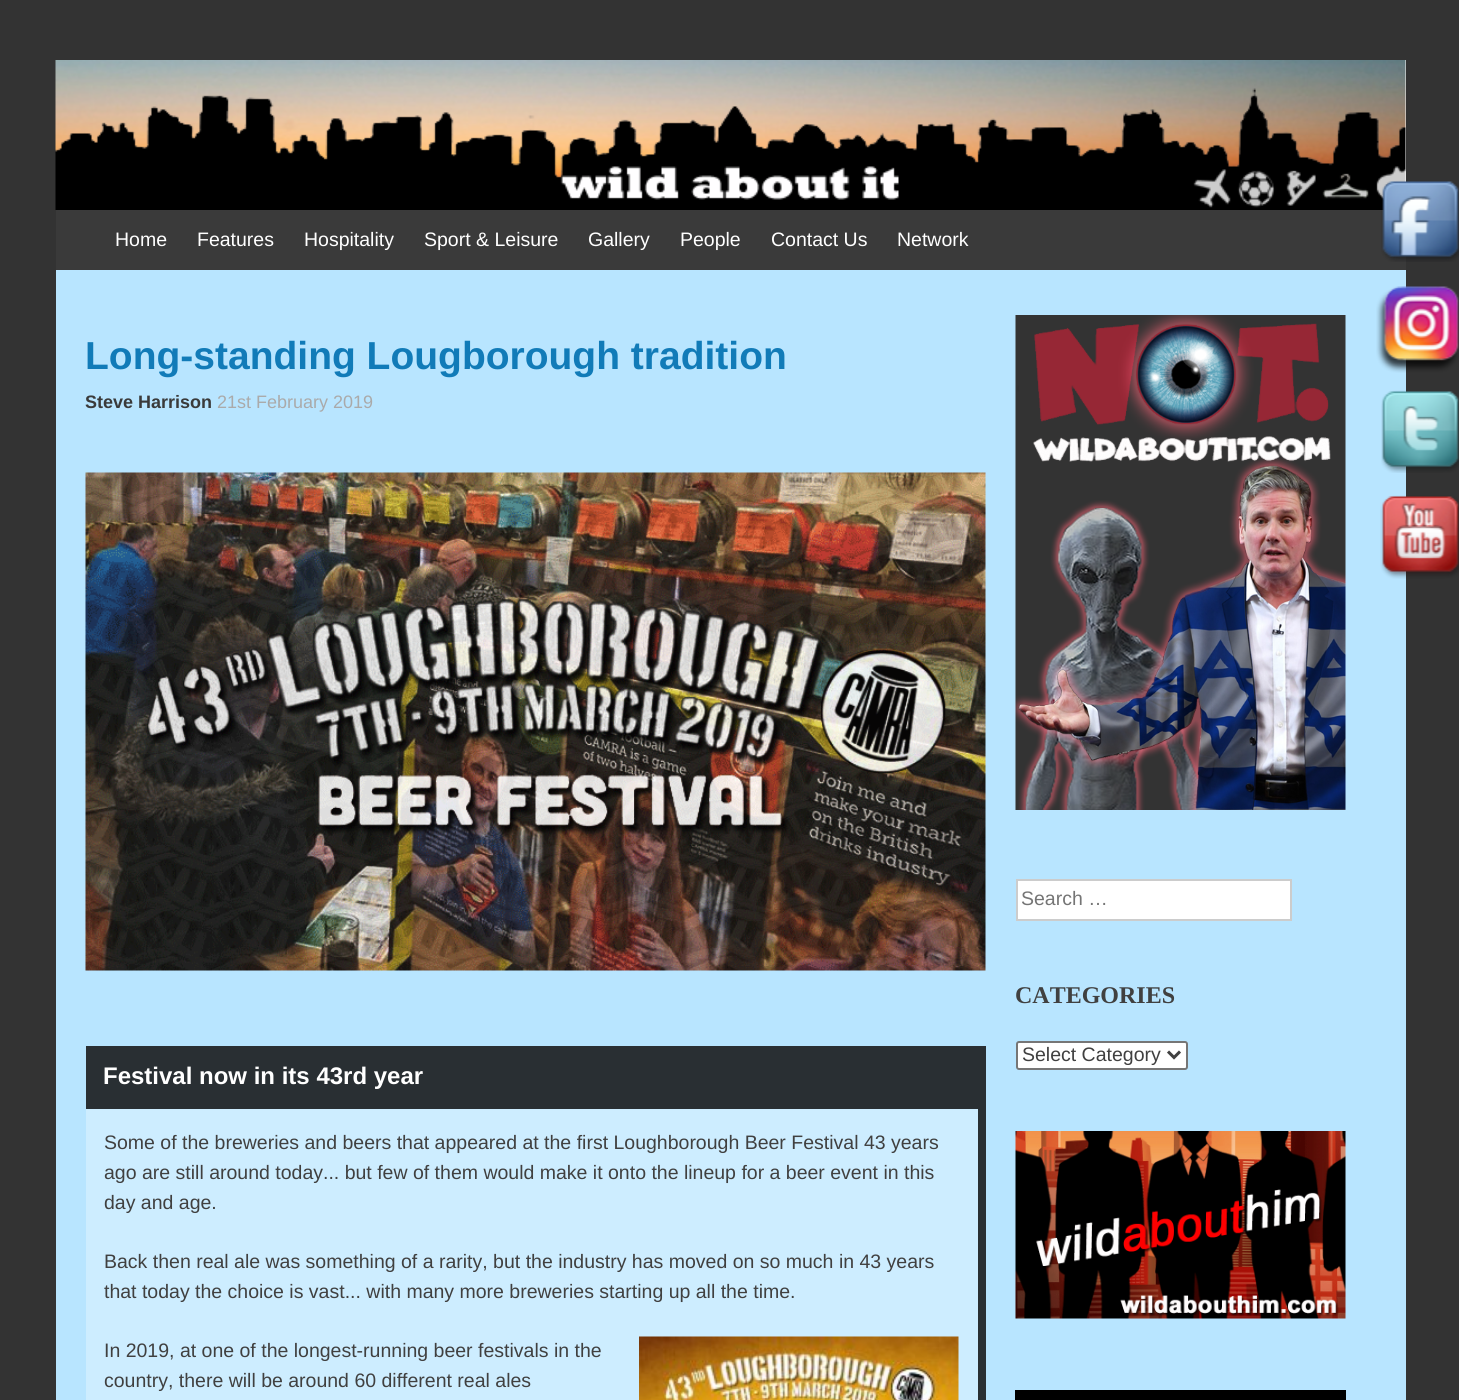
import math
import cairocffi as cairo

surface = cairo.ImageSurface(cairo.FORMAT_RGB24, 1459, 1400)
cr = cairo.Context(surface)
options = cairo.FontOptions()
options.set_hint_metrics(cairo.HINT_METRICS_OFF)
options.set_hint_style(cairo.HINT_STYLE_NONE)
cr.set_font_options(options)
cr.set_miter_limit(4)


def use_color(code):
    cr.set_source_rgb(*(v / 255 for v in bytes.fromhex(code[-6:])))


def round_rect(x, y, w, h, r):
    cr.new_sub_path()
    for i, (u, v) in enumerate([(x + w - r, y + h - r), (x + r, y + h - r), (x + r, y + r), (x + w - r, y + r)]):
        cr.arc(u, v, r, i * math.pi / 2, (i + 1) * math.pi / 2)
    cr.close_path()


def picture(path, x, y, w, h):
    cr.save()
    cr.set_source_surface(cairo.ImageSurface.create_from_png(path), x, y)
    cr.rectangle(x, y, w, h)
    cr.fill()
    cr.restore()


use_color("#333333")
cr.paint()
use_color("#ffffff")
cr.rectangle(1405, 60, 1, 122)
cr.fill()
picture("img1.png", 55, 60, 1351, 150)
use_color("#3a3a3a")
cr.rectangle(56, 210, 1350, 60)
cr.fill()
cr.select_font_face("Liberation Sans")
cr.set_font_size(19.5)
use_color("#ffffff")
cr.move_to(115, 246)
cr.show_text("Home")
cr.move_to(197, 246)
cr.show_text("Features")
cr.move_to(304, 246)
cr.show_text("Hospitality")
cr.move_to(424, 246)
cr.show_text("Sport & Leisure")
cr.move_to(588, 246)
cr.show_text("Gallery")
cr.move_to(680, 246)
cr.show_text("People")
cr.move_to(771, 246)
cr.show_text("Contact Us")
cr.move_to(897, 246)
cr.show_text("Network")
use_color("#b8e5ff")
cr.rectangle(56, 270, 1350, 1130)
cr.fill()
cr.select_font_face("Liberation Sans", cairo.FONT_SLANT_NORMAL, cairo.FONT_WEIGHT_BOLD)
cr.set_font_size(39)
use_color("#117bb8")
cr.move_to(85, 369)
cr.show_text("Long-standing Lougborough tradition")
cr.set_font_size(18)
use_color("#3a3a3a")
cr.move_to(85, 408)
cr.show_text("Steve Harrison")
cr.select_font_face("Liberation Sans")
use_color("#aaaaaa")
cr.move_to(217, 408)
cr.show_text("21st February 2019")
picture("img2.png", 85, 472, 901, 499)
use_color("#292f33")
cr.rectangle(86, 1046, 900, 63)
cr.fill()
cr.select_font_face("Liberation Sans", cairo.FONT_SLANT_NORMAL, cairo.FONT_WEIGHT_BOLD)
cr.set_font_size(24)
use_color("#ffffff")
cr.move_to(103, 1084)
cr.show_text("Festival now in its 43rd year")
use_color("#cdedff")
cr.rectangle(86, 1109, 892, 291)
cr.fill()
use_color("#292f33")
cr.rectangle(978, 1109, 8, 291)
cr.fill()
cr.select_font_face("Liberation Sans")
cr.set_font_size(19.5)
use_color("#404040")
cr.move_to(104, 1149)
cr.show_text("Some of the breweries and beers that appeared at the first Loughborough Beer Festival 43 years")
cr.move_to(104, 1179)
cr.show_text("ago are still around today... but few of them would make it onto the lineup for a beer event in this")
cr.move_to(104, 1209)
cr.show_text("day and age.")
cr.move_to(104, 1268)
cr.show_text("Back then real ale was something of a rarity, but the industry has moved on so much in 43 years")
cr.move_to(104, 1298)
cr.show_text("that today the choice is vast... with many more breweries starting up all the time.")
cr.move_to(104, 1357)
cr.show_text("In 2019, at one of the longest-running beer festivals in the")
picture("img3.png", 639, 1336, 320, 64)
cr.move_to(104, 1387)
cr.show_text("country, there will be around 60 different real ales")
picture("img4.png", 1015, 315, 331, 495)
use_color("#ffffff")
cr.rectangle(1017, 880, 274, 40)
cr.fill_preserve()
use_color("#cccccc")
cr.stroke()
use_color("#757575")
cr.move_to(1021, 905)
cr.show_text("Search …")
cr.select_font_face("Liberation Serif", cairo.FONT_SLANT_NORMAL, cairo.FONT_WEIGHT_BOLD)
cr.set_font_size(24)
use_color("#404040")
cr.move_to(1015, 1003)
cr.show_text("CATEGORIES")
use_color("#ffffff")
round_rect(1017, 1042, 170, 27, 2)
cr.fill_preserve()
use_color("#767676")
cr.stroke()
cr.new_path()
cr.move_to(1168, 1051.5)
cr.line_to(1174, 1057.5)
cr.line_to(1180, 1051.5)
use_color("#404040")
cr.set_line_width(3)
cr.stroke()
cr.select_font_face("Liberation Sans")
cr.set_font_size(19.5)
cr.move_to(1022, 1061)
cr.show_text("Select Category")
picture("img5.png", 1015, 1131, 331, 188)
use_color("#000000")
cr.rectangle(1015, 1390, 331, 10)
cr.fill()
picture("img6.png", 1381, 180, 78, 82)
picture("img7.png", 1376, 286, 83, 87)
picture("img8.png", 1381, 390, 78, 83)
picture("img9.png", 1380, 495, 79, 84)
surface.write_to_png("result.png")
